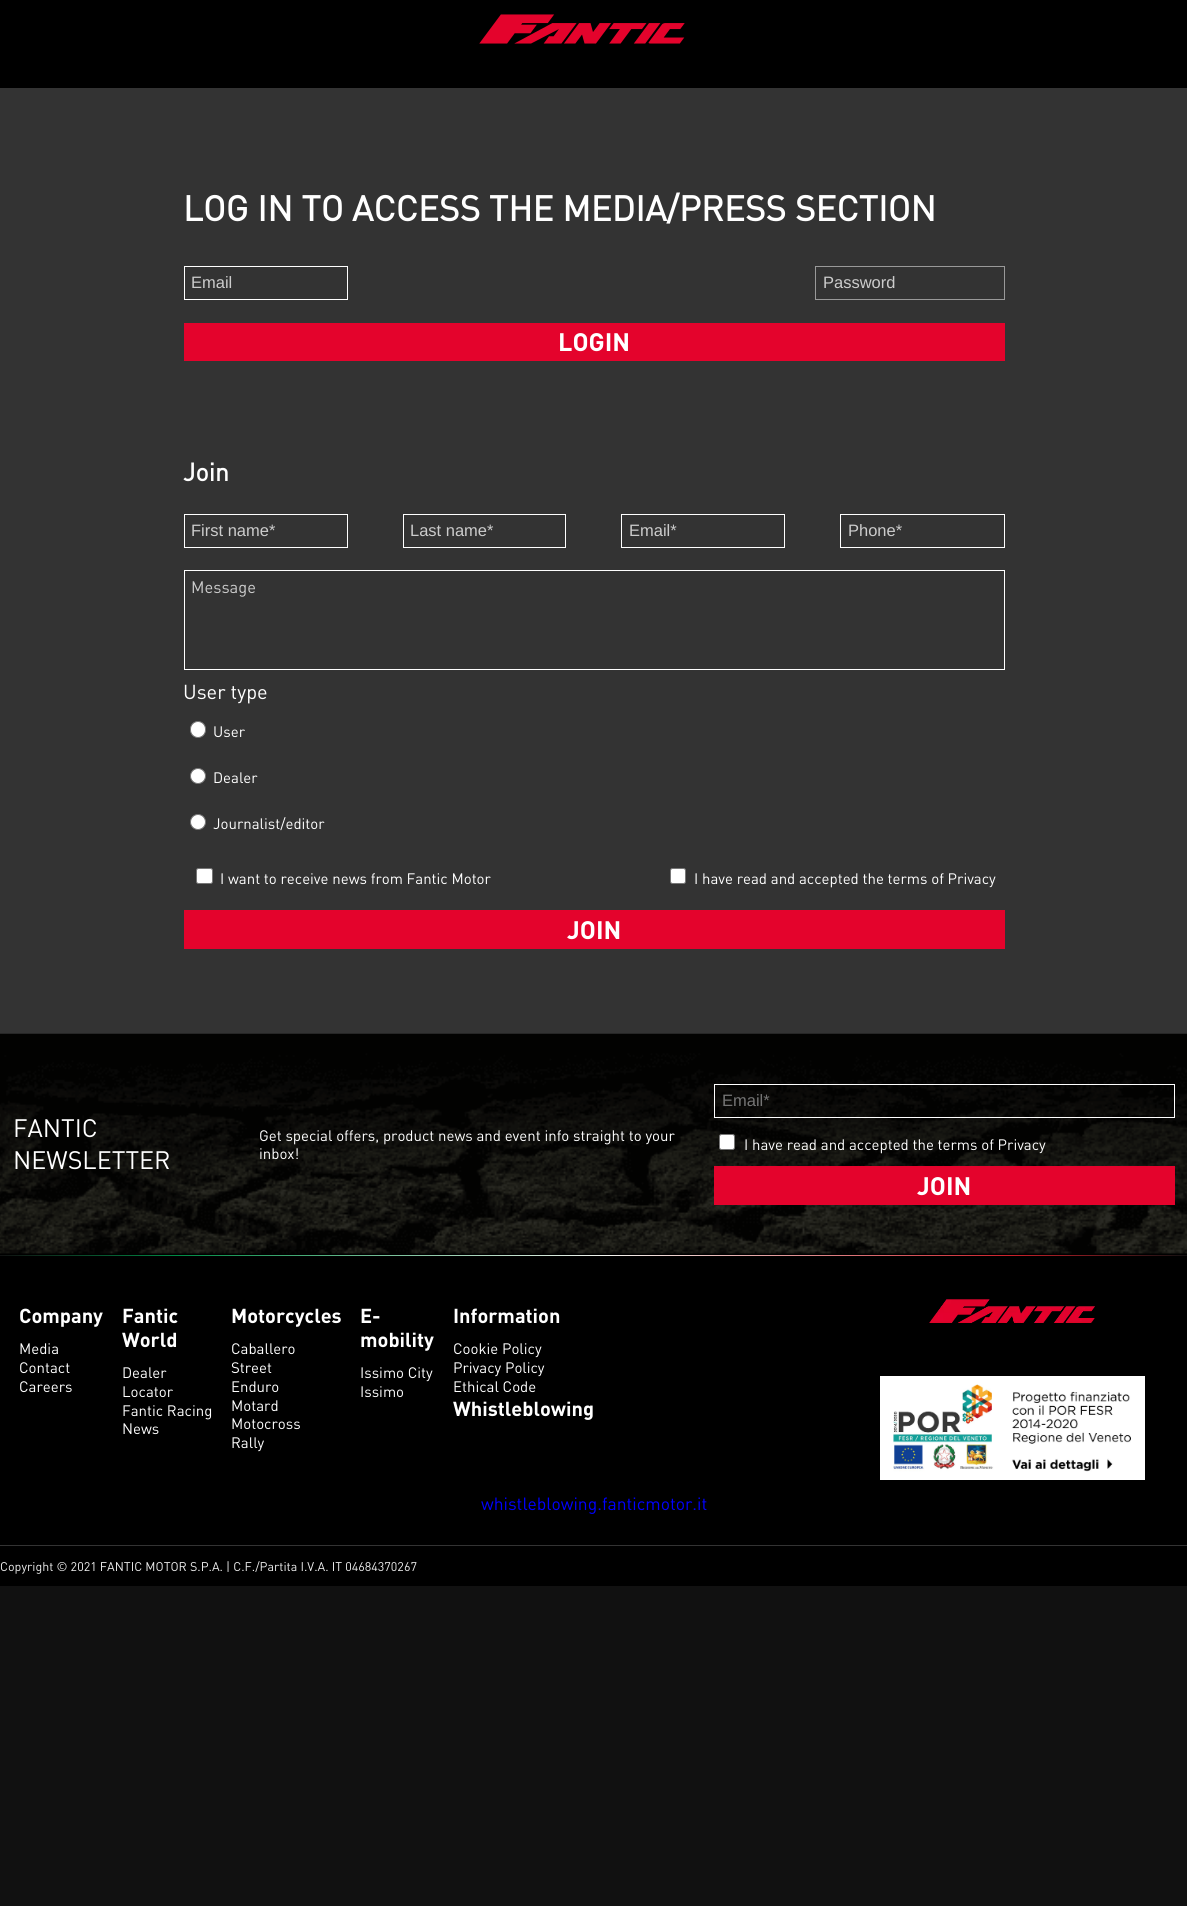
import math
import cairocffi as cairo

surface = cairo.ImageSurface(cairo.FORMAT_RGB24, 1187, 1906)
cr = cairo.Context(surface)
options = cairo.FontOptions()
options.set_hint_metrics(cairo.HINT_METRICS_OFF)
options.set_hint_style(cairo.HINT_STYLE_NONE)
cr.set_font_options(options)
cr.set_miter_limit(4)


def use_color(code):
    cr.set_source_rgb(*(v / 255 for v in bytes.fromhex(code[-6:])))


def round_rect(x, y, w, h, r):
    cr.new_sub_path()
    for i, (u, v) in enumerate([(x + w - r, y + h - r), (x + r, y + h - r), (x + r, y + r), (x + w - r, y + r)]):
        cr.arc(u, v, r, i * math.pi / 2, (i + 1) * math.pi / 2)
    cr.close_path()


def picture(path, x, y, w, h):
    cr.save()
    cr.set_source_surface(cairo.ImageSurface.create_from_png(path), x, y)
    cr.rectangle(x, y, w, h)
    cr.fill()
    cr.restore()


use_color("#111111")
cr.paint()
use_color("#000000")
cr.rectangle(0, 0, 1187, 88)
cr.fill()
picture("img1.png", 479, 14, 206, 30)
use_color("#333333")
cr.rectangle(0, 88, 1187, 946)
cr.fill()
cr.select_font_face("DIN", cairo.FONT_SLANT_NORMAL, cairo.FONT_WEIGHT_BOLD)
cr.set_font_size(35)
use_color("#ffffff")
cr.move_to(183, 221)
cr.show_text("LOG IN TO ACCESS THE MEDIA/PRESS SECTION")
cr.rectangle(184.5, 266.5, 163, 33)
cr.set_line_width(1)
cr.stroke()
cr.select_font_face("Liberation Sans")
cr.set_font_size(16.5)
use_color("#cccccc")
cr.move_to(191, 288)
cr.show_text("Email")
cr.rectangle(815.5, 266.5, 189, 33)
use_color("#999999")
cr.stroke()
use_color("#cccccc")
cr.move_to(823, 288)
cr.show_text("Password")
use_color("#e4032c")
cr.rectangle(184, 323, 821, 38)
cr.fill()
cr.select_font_face("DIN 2", cairo.FONT_SLANT_NORMAL, cairo.FONT_WEIGHT_BOLD)
cr.set_font_size(25)
use_color("#ffffff")
cr.move_to(558, 351)
cr.show_text("LOGIN")
cr.select_font_face("DIN", cairo.FONT_SLANT_NORMAL, cairo.FONT_WEIGHT_BOLD)
cr.move_to(183, 481)
cr.show_text("Join")
cr.rectangle(184.5, 514.5, 163, 33)
cr.stroke()
cr.select_font_face("Liberation Sans")
cr.set_font_size(16.5)
use_color("#cccccc")
cr.move_to(191, 536)
cr.show_text("First name*")
cr.rectangle(403.5, 514.5, 162, 33)
use_color("#ffffff")
cr.stroke()
use_color("#cccccc")
cr.move_to(410, 536)
cr.show_text("Last name*")
cr.rectangle(621.5, 514.5, 163, 33)
use_color("#ffffff")
cr.stroke()
use_color("#cccccc")
cr.move_to(629, 536)
cr.show_text("Email*")
cr.rectangle(840.5, 514.5, 164, 33)
use_color("#ffffff")
cr.stroke()
use_color("#cccccc")
cr.move_to(848, 536)
cr.show_text("Phone*")
cr.rectangle(184.5, 570.5, 820, 99)
use_color("#ffffff")
cr.stroke()
cr.select_font_face("DIN")
use_color("#cccccc")
cr.move_to(191, 593)
cr.show_text("Message")
cr.set_font_size(20)
use_color("#ffffff")
cr.move_to(183, 699)
cr.show_text("User type")
round_rect(190.5, 721.5, 15, 16, 7.5)
cr.fill_preserve()
use_color("#767676")
cr.stroke()
cr.set_font_size(15)
use_color("#ffffff")
cr.move_to(213, 737)
cr.show_text("User")
cr.new_path()
cr.arc(198, 776, 7.5, 0, 2 * math.pi)
cr.fill_preserve()
use_color("#767676")
cr.stroke()
use_color("#ffffff")
cr.move_to(213, 783)
cr.show_text("Dealer")
cr.new_path()
cr.arc(198, 822, 7.5, 0, 2 * math.pi)
cr.fill_preserve()
use_color("#767676")
cr.stroke()
use_color("#ffffff")
cr.move_to(213, 829)
cr.show_text("Journalist/editor")
round_rect(196.5, 868.5, 16, 15, 2)
cr.fill_preserve()
use_color("#767676")
cr.stroke()
use_color("#ffffff")
cr.move_to(220, 884)
cr.show_text("I want to receive news from Fantic Motor")
round_rect(670.5, 868.5, 15, 15, 2)
cr.fill_preserve()
use_color("#767676")
cr.stroke()
use_color("#ffffff")
cr.move_to(694, 884)
cr.show_text("I have read and accepted the terms of Privacy")
use_color("#e4032c")
cr.rectangle(184, 910, 821, 39)
cr.fill()
cr.select_font_face("DIN 2", cairo.FONT_SLANT_NORMAL, cairo.FONT_WEIGHT_BOLD)
cr.set_font_size(25)
use_color("#ffffff")
cr.move_to(567, 939)
cr.show_text("JOIN")
use_color("#000000")
cr.rectangle(0, 1254, 1187, 1)
cr.fill()
picture("img2.png", 0, 1033, 1187, 221)
cr.select_font_face("DIN")
use_color("#ffffff")
cr.move_to(13, 1137)
cr.show_text("FANTIC")
cr.move_to(13, 1169)
cr.show_text("NEWSLETTER")
cr.set_font_size(15)
cr.move_to(259, 1141)
cr.show_text("Get special offers, product news and event info straight to your")
cr.move_to(259, 1159)
cr.show_text("inbox!")
cr.rectangle(714.5, 1084.5, 460, 33)
cr.stroke()
cr.select_font_face("Liberation Sans")
cr.set_font_size(16.5)
use_color("#757575")
cr.move_to(722, 1106)
cr.show_text("Email*")
use_color("#ffffff")
round_rect(719.5, 1134.5, 15, 15, 2)
cr.fill_preserve()
use_color("#767676")
cr.stroke()
cr.select_font_face("DIN")
cr.set_font_size(15)
use_color("#ffffff")
cr.move_to(744, 1150)
cr.show_text("I have read and accepted the terms of Privacy")
use_color("#e4032c")
cr.rectangle(714, 1166, 461, 39)
cr.fill()
cr.select_font_face("DIN 2", cairo.FONT_SLANT_NORMAL, cairo.FONT_WEIGHT_BOLD)
cr.set_font_size(25)
use_color("#ffffff")
cr.move_to(917, 1195)
cr.show_text("JOIN")
gradient = cairo.LinearGradient(0, 1256, 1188, 1256)
gradient.add_color_stop_rgba(0, 0.067, 0.067, 0.067, 1)
gradient.add_color_stop_rgba(0.15, 0, 0.549, 0.271, 1)
gradient.add_color_stop_rgba(0.51, 0.957, 0.961, 0.941, 1)
gradient.add_color_stop_rgba(0.85, 0.804, 0.129, 0.165, 1)
gradient.add_color_stop_rgba(1, 0.067, 0.067, 0.067, 1)
cr.set_source(gradient)
cr.rectangle(0, 1255, 1187, 1)
cr.fill()
use_color("#000000")
cr.rectangle(0, 1256, 1187, 289)
cr.fill()
cr.set_font_size(20)
use_color("#ffffff")
cr.move_to(19, 1323)
cr.show_text("Company")
cr.select_font_face("DIN")
cr.set_font_size(15)
cr.move_to(19, 1354)
cr.show_text("Media")
cr.move_to(19, 1373)
cr.show_text("Contact")
cr.move_to(19, 1392)
cr.show_text("Careers")
cr.select_font_face("DIN 2", cairo.FONT_SLANT_NORMAL, cairo.FONT_WEIGHT_BOLD)
cr.set_font_size(20)
cr.move_to(122, 1323)
cr.show_text("Fantic")
cr.move_to(122, 1347)
cr.show_text("World")
cr.select_font_face("DIN")
cr.set_font_size(15)
cr.move_to(122, 1378)
cr.show_text("Dealer")
cr.move_to(122, 1397)
cr.show_text("Locator")
cr.move_to(122, 1416)
cr.show_text("Fantic Racing")
cr.move_to(122, 1434)
cr.show_text("News")
cr.select_font_face("DIN 2", cairo.FONT_SLANT_NORMAL, cairo.FONT_WEIGHT_BOLD)
cr.set_font_size(20)
cr.move_to(231, 1323)
cr.show_text("Motorcycles")
cr.select_font_face("DIN")
cr.set_font_size(15)
cr.move_to(231, 1354)
cr.show_text("Caballero")
cr.move_to(231, 1373)
cr.show_text("Street")
cr.move_to(231, 1392)
cr.show_text("Enduro")
cr.move_to(231, 1411)
cr.show_text("Motard")
cr.move_to(231, 1429)
cr.show_text("Motocross")
cr.move_to(231, 1448)
cr.show_text("Rally")
cr.select_font_face("DIN 2", cairo.FONT_SLANT_NORMAL, cairo.FONT_WEIGHT_BOLD)
cr.set_font_size(20)
cr.move_to(360, 1323)
cr.show_text("E-")
cr.move_to(360, 1347)
cr.show_text("mobility")
cr.select_font_face("DIN")
cr.set_font_size(15)
cr.move_to(360, 1378)
cr.show_text("Issimo City")
cr.move_to(360, 1397)
cr.show_text("Issimo")
cr.select_font_face("DIN 2", cairo.FONT_SLANT_NORMAL, cairo.FONT_WEIGHT_BOLD)
cr.set_font_size(20)
cr.move_to(453, 1323)
cr.show_text("Information")
cr.select_font_face("DIN")
cr.set_font_size(15)
cr.move_to(453, 1354)
cr.show_text("Cookie Policy")
cr.move_to(453, 1373)
cr.show_text("Privacy Policy")
cr.move_to(453, 1392)
cr.show_text("Ethical Code")
cr.select_font_face("DIN 2", cairo.FONT_SLANT_NORMAL, cairo.FONT_WEIGHT_BOLD)
cr.set_font_size(20)
cr.move_to(453, 1416)
cr.show_text("Whistleblowing")
picture("img3.png", 929, 1299, 166, 24)
cr.rectangle(880, 1376, 265, 104)
cr.fill()
picture("img4.png", 893, 1384, 238, 88)
cr.select_font_face("DIN")
cr.set_font_size(17.5)
use_color("#0000ff")
cr.move_to(481, 1510)
cr.show_text("whistleblowing.fanticmotor.it")
use_color("#000000")
cr.rectangle(0, 1546, 1187, 40)
cr.fill()
use_color("#333333")
cr.rectangle(0, 1545, 1187, 1)
cr.fill()
cr.set_font_size(12.5)
use_color("#eeeeee")
cr.move_to(0, 1571)
cr.show_text("Copyright © 2021 FANTIC MOTOR S.P.A. | C.F./Partita I.V.A. IT 04684370267")
surface.write_to_png("result.png")
